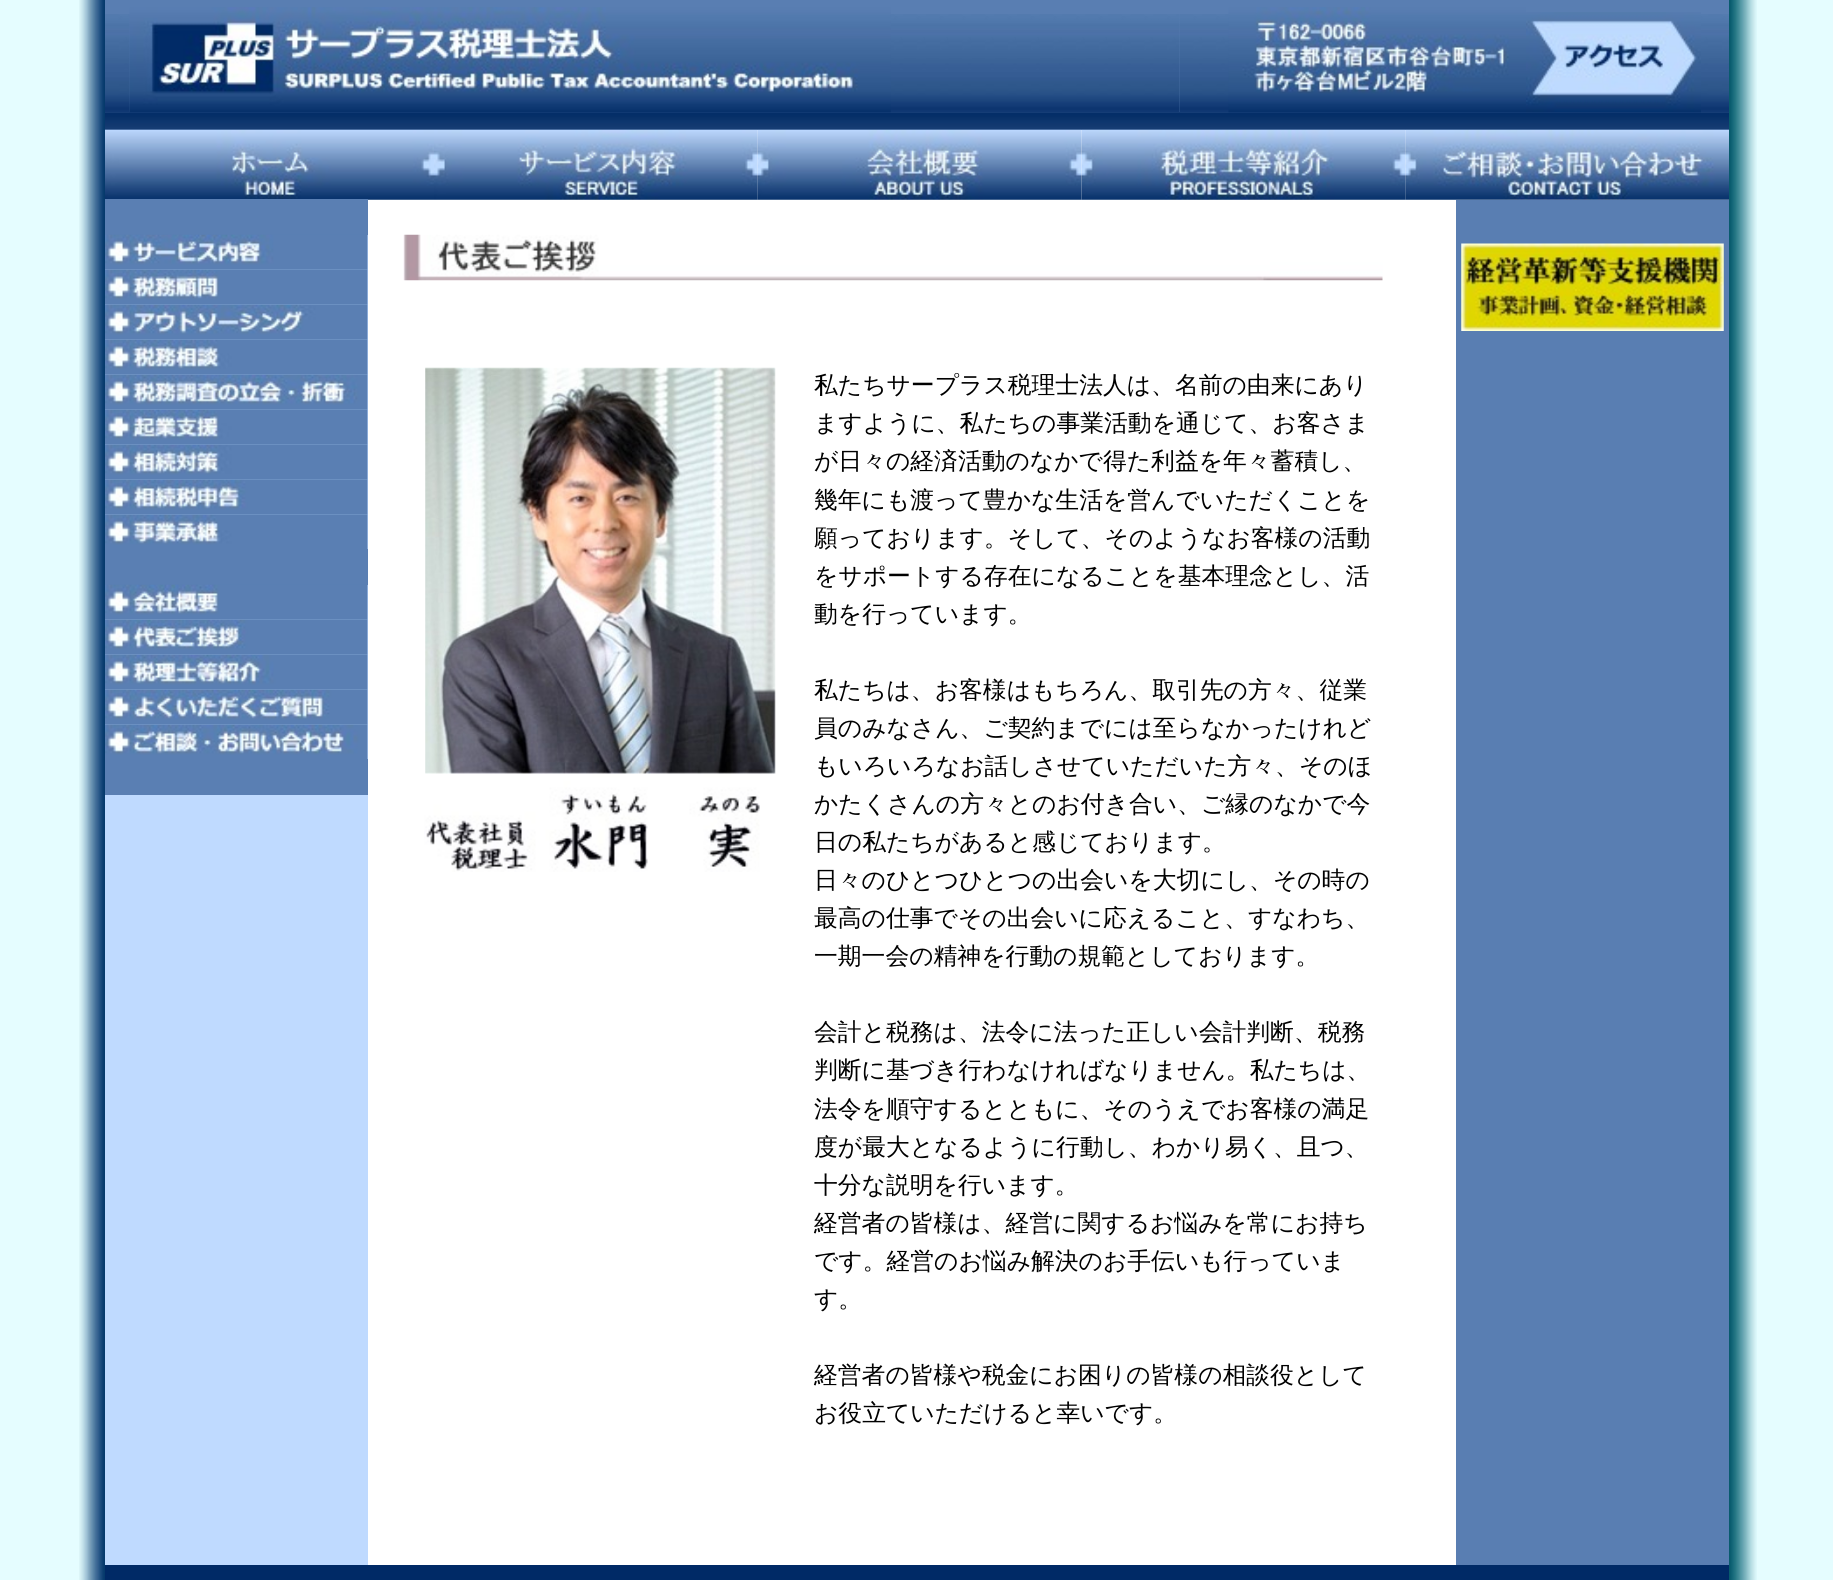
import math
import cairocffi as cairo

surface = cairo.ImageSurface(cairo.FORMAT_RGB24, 1833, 1580)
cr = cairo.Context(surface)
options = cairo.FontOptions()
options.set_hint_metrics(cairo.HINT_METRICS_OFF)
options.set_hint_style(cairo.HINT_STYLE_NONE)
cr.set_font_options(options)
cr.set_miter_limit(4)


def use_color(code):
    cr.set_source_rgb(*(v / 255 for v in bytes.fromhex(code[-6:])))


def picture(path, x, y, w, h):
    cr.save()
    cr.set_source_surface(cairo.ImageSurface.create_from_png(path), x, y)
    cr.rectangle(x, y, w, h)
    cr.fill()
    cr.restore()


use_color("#e5fdff")
cr.paint()
picture("img1.png", 79, 0, 26, 1580)
use_color("#ffffff")
cr.rectangle(368, 130, 1361, 1435)
cr.fill()
use_color("#597eb2")
cr.rectangle(105, 0, 1624, 130)
cr.fill()
picture("img2.png", 105, 14, 25, 99)
picture("img3.png", 129, 14, 1051, 99)
picture("img4.png", 129, 7, 762, 106)
picture("img5.png", 1179, 14, 347, 99)
picture("img6.png", 1228, 7, 298, 106)
picture("img7.png", 1526, 14, 203, 99)
picture("img8.png", 1526, 12, 175, 101)
picture("img9.png", 105, 112, 1624, 18)
picture("img10.png", 105, 129, 329, 71)
picture("img11.png", 434, 129, 324, 71)
picture("img12.png", 757, 129, 325, 71)
picture("img13.png", 1081, 129, 325, 71)
picture("img14.png", 1405, 129, 324, 71)
use_color("#bfdaff")
cr.rectangle(105, 235, 263, 1330)
cr.fill()
use_color("#5a7fb3")
cr.rectangle(105, 199, 263, 36)
cr.fill()
picture("img15.png", 105, 234, 263, 36)
picture("img16.png", 105, 269, 263, 36)
picture("img17.png", 105, 304, 263, 36)
picture("img18.png", 105, 339, 263, 36)
picture("img19.png", 105, 374, 263, 36)
picture("img20.png", 105, 409, 263, 36)
picture("img21.png", 105, 444, 263, 36)
picture("img22.png", 105, 479, 263, 36)
picture("img23.png", 105, 514, 263, 35)
cr.rectangle(105, 549, 263, 36)
cr.fill()
picture("img24.png", 105, 584, 263, 36)
picture("img25.png", 105, 619, 263, 36)
picture("img26.png", 105, 654, 263, 36)
picture("img27.png", 105, 689, 263, 36)
picture("img28.png", 105, 724, 263, 35)
cr.rectangle(105, 759, 263, 36)
cr.fill()
picture("img29.png", 403, 234, 980, 47)
picture("img30.png", 425, 367, 351, 407)
picture("img31.png", 424, 773, 351, 99)
cr.select_font_face("WenQuanYi Zen Hei Medium")
cr.set_font_size(23.8)
use_color("#000000")
cr.move_to(814, 393)
cr.show_text("私たちサープラス税理士法人は、名前の由来にあり")
cr.move_to(814, 431)
cr.show_text("ますように、私たちの事業活動を通じて、お客さま")
cr.move_to(814, 469)
cr.show_text("が日々の経済活動のなかで得た利益を年々蓄積し、")
cr.move_to(814, 508)
cr.show_text("幾年にも渡って豊かな生活を営んでいただくことを")
cr.move_to(814, 546)
cr.show_text("願っております。そして、そのようなお客様の活動")
cr.move_to(814, 584)
cr.show_text("をサポートする存在になることを基本理念とし、活")
cr.move_to(814, 622)
cr.show_text("動を行っています。")
cr.move_to(814, 698)
cr.show_text("私たちは、お客様はもちろん、取引先の方々、従業")
cr.move_to(814, 736)
cr.show_text("員のみなさん、ご契約までには至らなかったけれど")
cr.move_to(814, 774)
cr.show_text("もいろいろなお話しさせていただいた方々、そのほ")
cr.move_to(814, 812)
cr.show_text("かたくさんの方々とのお付き合い、ご縁のなかで今")
cr.move_to(814, 850)
cr.show_text("日の私たちがあると感じております。")
cr.move_to(814, 888)
cr.show_text("日々のひとつひとつの出会いを大切にし、その時の")
cr.move_to(814, 926)
cr.show_text("最高の仕事でその出会いに応えること、すなわち、")
cr.move_to(814, 964)
cr.show_text("一期一会の精神を行動の規範としております。")
cr.move_to(814, 1040)
cr.show_text("会計と税務は、法令に法った正しい会計判断、税務")
cr.move_to(814, 1078)
cr.show_text("判断に基づき行わなければなりません。私たちは、")
cr.move_to(814, 1117)
cr.show_text("法令を順守するとともに、そのうえでお客様の満足")
cr.move_to(814, 1155)
cr.show_text("度が最大となるように行動し、わかり易く、且つ、")
cr.move_to(814, 1193)
cr.show_text("十分な説明を行います。")
cr.move_to(814, 1231)
cr.show_text("経営者の皆様は、経営に関するお悩みを常にお持ち")
cr.move_to(814, 1269)
cr.show_text("です。経営のお悩み解決のお手伝いも行っていま")
cr.move_to(814, 1307)
cr.show_text("す。")
cr.move_to(814, 1383)
cr.show_text("経営者の皆様や税金にお困りの皆様の相談役として")
cr.move_to(814, 1421)
cr.show_text("お役立ていただけると幸いです。")
use_color("#597eb2")
cr.rectangle(1456, 200, 273, 1365)
cr.fill()
picture("img32.png", 1461, 243, 263, 88)
use_color("#002a66")
cr.rectangle(105, 1565, 1624, 15)
cr.fill()
picture("img33.png", 1729, 0, 28, 1580)
surface.write_to_png("result.png")
